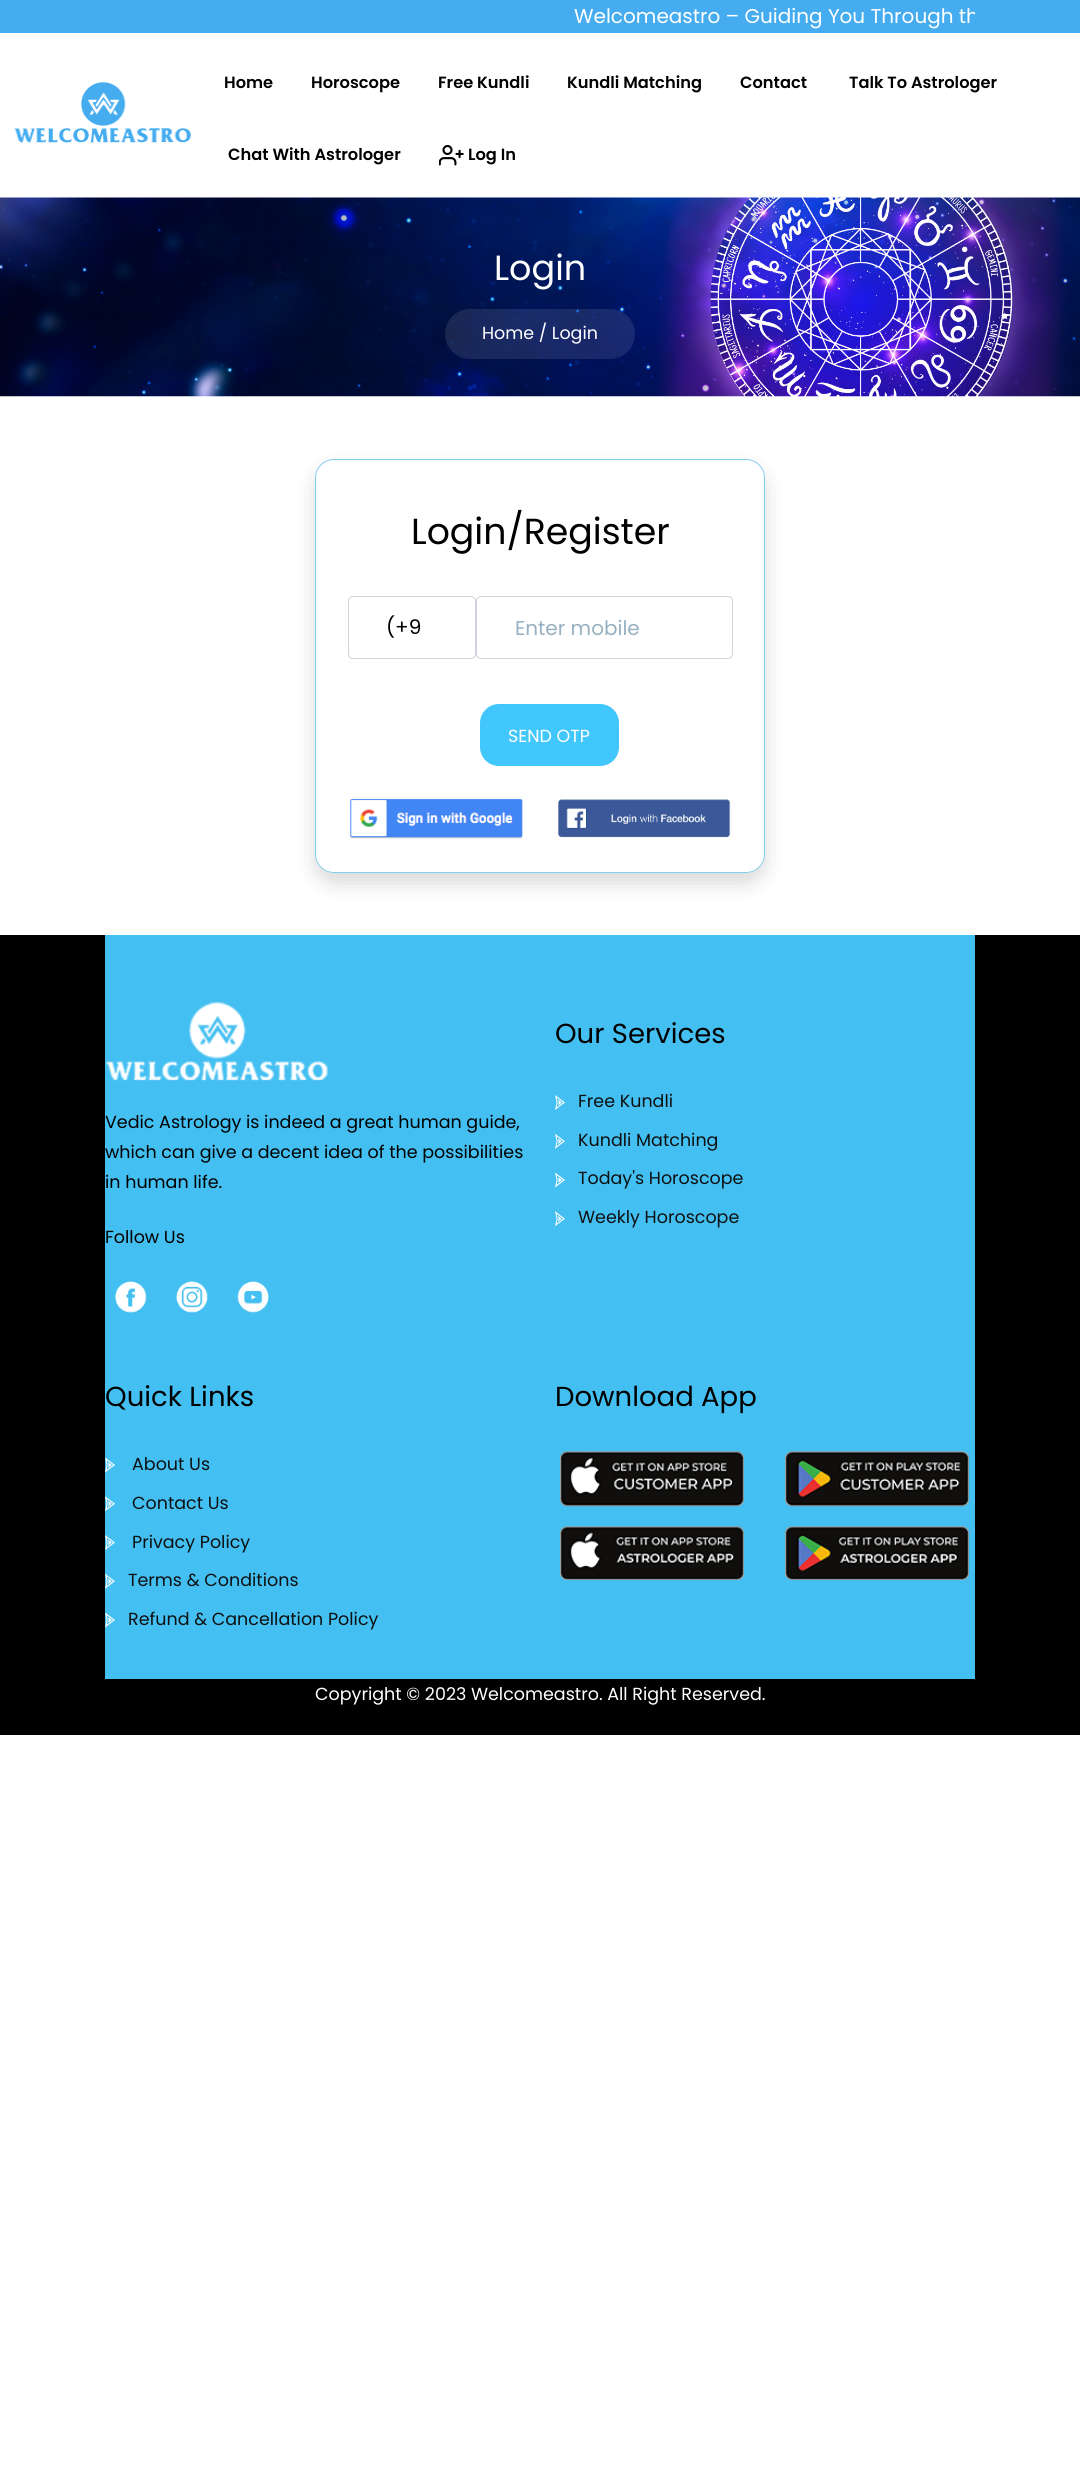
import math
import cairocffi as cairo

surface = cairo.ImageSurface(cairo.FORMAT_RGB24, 1080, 2484)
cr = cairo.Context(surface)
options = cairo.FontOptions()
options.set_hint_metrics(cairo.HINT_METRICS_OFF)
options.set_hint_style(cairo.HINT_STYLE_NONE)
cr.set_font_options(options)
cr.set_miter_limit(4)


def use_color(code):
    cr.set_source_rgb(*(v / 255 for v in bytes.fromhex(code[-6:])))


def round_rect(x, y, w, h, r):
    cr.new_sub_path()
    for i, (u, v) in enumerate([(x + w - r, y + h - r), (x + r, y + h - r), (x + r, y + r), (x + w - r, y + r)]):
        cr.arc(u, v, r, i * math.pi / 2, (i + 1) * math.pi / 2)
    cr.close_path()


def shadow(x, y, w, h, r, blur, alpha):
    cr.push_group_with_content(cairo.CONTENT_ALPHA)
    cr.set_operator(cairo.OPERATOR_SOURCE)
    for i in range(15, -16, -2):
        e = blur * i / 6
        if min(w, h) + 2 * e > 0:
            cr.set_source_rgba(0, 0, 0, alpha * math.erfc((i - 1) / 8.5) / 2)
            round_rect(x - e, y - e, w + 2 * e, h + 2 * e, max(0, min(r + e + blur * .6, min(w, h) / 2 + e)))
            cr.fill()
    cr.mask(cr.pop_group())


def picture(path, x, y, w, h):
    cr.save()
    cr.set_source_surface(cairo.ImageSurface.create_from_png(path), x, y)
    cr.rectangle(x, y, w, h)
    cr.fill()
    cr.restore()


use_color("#ffffff")
cr.paint()
use_color("#45acef")
cr.rectangle(0, 0, 1080, 33)
cr.fill()
cr.save()
cr.rectangle(105, 0, 870, 33)
cr.clip()
cr.select_font_face("Poppins")
cr.set_font_size(20)
use_color("#ffffff")
cr.move_to(574, 23)
cr.show_text("Welcomeastro – Guiding You Through th")
cr.restore()
picture("img3.png", 0, 197, 1080, 200)
cr.set_source_rgba(1, 1, 1, 0.1)
cr.rectangle(206, 197, 1, 1)
cr.fill()
picture("img1.png", 14, 82, 177, 61)
cr.select_font_face("Poppins SemiBold")
cr.set_font_size(16.25)
use_color("#000000")
cr.move_to(224, 88)
cr.show_text("Home")
cr.move_to(311, 88)
cr.show_text("Horoscope")
cr.move_to(438, 88)
cr.show_text("Free Kundli")
cr.move_to(567, 88)
cr.show_text("Kundli Matching")
cr.move_to(740, 88)
cr.show_text("Contact")
cr.move_to(849, 88)
cr.show_text("Talk To Astrologer")
cr.move_to(228, 160)
cr.show_text("Chat With Astrologer")
picture("img2.png", 439, 144, 25, 22)
cr.move_to(468, 160)
cr.show_text("Log In")
cr.select_font_face("Poppins")
cr.set_font_size(35)
use_color("#ffffff")
cr.move_to(494, 280)
cr.show_text("Login")
cr.set_source_rgba(1, 1, 1, 0.1)
round_rect(445, 309, 190, 50, 25)
cr.fill()
cr.set_font_size(17.5)
use_color("#ffffff")
cr.move_to(482, 339)
cr.show_text("Home / Login")
cr.save()
cr.set_fill_rule(cairo.FILL_RULE_EVEN_ODD)
cr.new_path()
cr.move_to(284, 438)
cr.line_to(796, 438)
cr.line_to(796, 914)
cr.line_to(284, 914)
cr.close_path()
cr.move_to(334, 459)
cr.line_to(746, 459)
cr.curve_to(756.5, 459, 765, 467.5, 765, 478)
cr.line_to(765, 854)
cr.curve_to(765, 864.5, 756.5, 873, 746, 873)
cr.line_to(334, 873)
cr.curve_to(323.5, 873, 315, 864.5, 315, 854)
cr.line_to(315, 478)
cr.curve_to(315, 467.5, 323.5, 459, 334, 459)
cr.close_path()
cr.clip()
use_color("#000000")
shadow(315, 469, 450, 414, 19, 10, 0.15)
cr.restore()
round_rect(315.5, 459.5, 449, 413, 18.5)
use_color("#87ceeb")
cr.set_line_width(1)
cr.stroke()
cr.set_font_size(36.25)
use_color("#000000")
cr.move_to(411, 544)
cr.show_text("Login/Register")
round_rect(348.5, 596.5, 127, 62, 4.5)
use_color("#ced4da")
cr.stroke()
cr.set_font_size(20)
use_color("#000000")
cr.move_to(386, 634)
cr.show_text("(+9")
round_rect(476.5, 596.5, 256, 62, 4.5)
use_color("#ced4da")
cr.stroke()
use_color("#97b0c1")
cr.move_to(515, 635)
cr.show_text("Enter mobile")
use_color("#42c7fd")
round_rect(480, 704, 139, 62, 19)
cr.fill()
cr.set_font_size(17.5)
use_color("#ffffff")
cr.move_to(508, 742)
cr.show_text("SEND OTP")
picture("img4.png", 350, 799, 173, 40)
picture("img5.png", 558, 799, 173, 39)
use_color("#000000")
cr.rectangle(0, 935, 1080, 800)
cr.fill()
use_color("#44bff1")
cr.rectangle(105, 935, 870, 744)
cr.fill()
picture("img6.png", 106, 1002, 222, 79)
use_color("#000000")
cr.move_to(105, 1128)
cr.show_text("Vedic Astrology is indeed a great human guide,")
cr.move_to(105, 1158)
cr.show_text("which can give a decent idea of the possibilities")
cr.move_to(105, 1188)
cr.show_text("in human life.")
cr.move_to(105, 1243)
cr.show_text("Follow Us")
picture("img7.png", 115, 1281, 32, 32)
picture("img8.png", 176, 1281, 32, 32)
picture("img9.png", 237, 1281, 32, 32)
cr.set_font_size(27.5)
cr.move_to(555, 1043)
cr.show_text("Our Services")
picture("img10.png", 555, 1095, 10, 15)
cr.set_font_size(17.5)
use_color("#0d1112")
cr.move_to(578, 1107)
cr.show_text("Free Kundli")
picture("img11.png", 555, 1134, 10, 15)
cr.move_to(578, 1146)
cr.show_text("Kundli Matching")
picture("img12.png", 555, 1173, 10, 15)
cr.move_to(578, 1184)
cr.show_text("Today's Horoscope")
picture("img13.png", 555, 1211, 10, 15)
cr.move_to(578, 1223)
cr.show_text("Weekly Horoscope")
cr.set_font_size(27.5)
use_color("#000000")
cr.move_to(105, 1406)
cr.show_text("Quick Links")
picture("img12.png", 105, 1458, 10, 15)
cr.set_font_size(17.5)
use_color("#0d1112")
cr.move_to(132, 1470)
cr.show_text("About Us")
picture("img13.png", 105, 1496, 10, 15)
cr.move_to(132, 1509)
cr.show_text("Contact Us")
picture("img10.png", 105, 1535, 10, 15)
cr.move_to(132, 1548)
cr.show_text("Privacy Policy")
picture("img11.png", 105, 1574, 10, 15)
cr.move_to(128, 1586)
cr.show_text("Terms & Conditions")
picture("img12.png", 105, 1613, 10, 15)
cr.move_to(128, 1625)
cr.show_text("Refund & Cancellation Policy")
cr.set_font_size(27.5)
use_color("#000000")
cr.move_to(555, 1406)
cr.show_text("Download App")
picture("img14.png", 560, 1451, 184, 56)
picture("img15.png", 560, 1526, 184, 54)
picture("img16.png", 785, 1451, 184, 56)
picture("img17.png", 785, 1526, 184, 54)
cr.set_font_size(17.5)
use_color("#ffffff")
cr.move_to(315, 1700)
cr.show_text("Copyright © 2023 Welcomeastro. All Right Reserved.")
surface.write_to_png("result.png")
